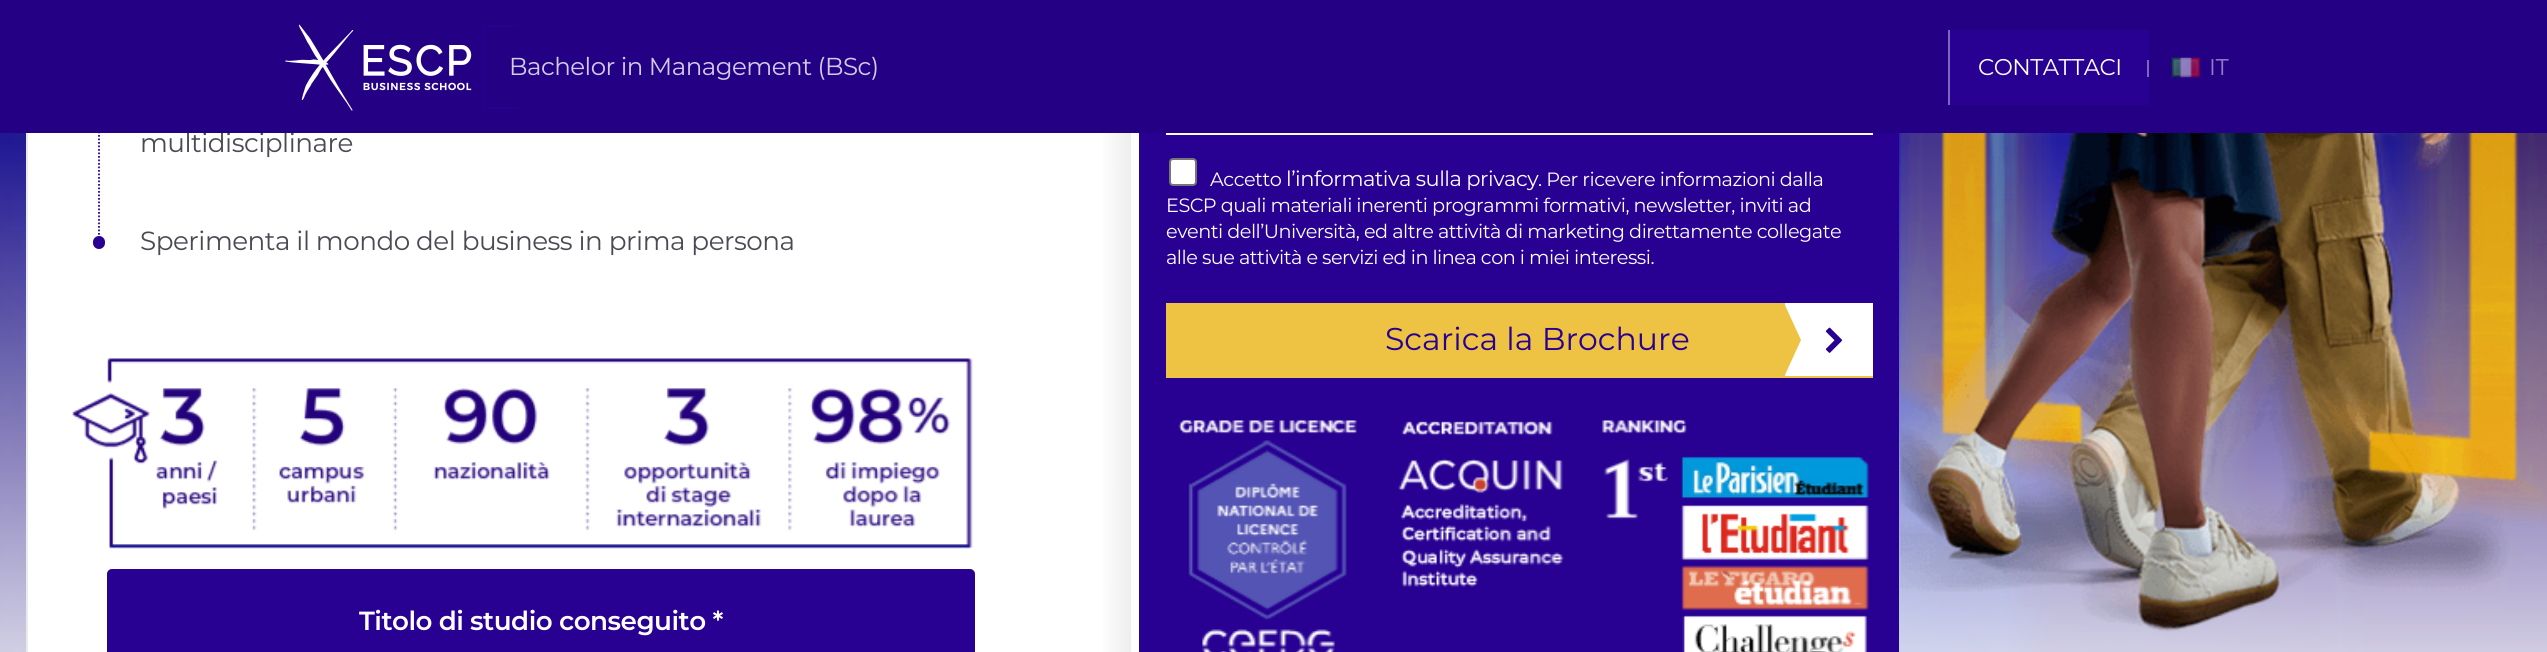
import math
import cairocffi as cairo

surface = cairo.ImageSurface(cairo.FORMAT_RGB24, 2547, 652)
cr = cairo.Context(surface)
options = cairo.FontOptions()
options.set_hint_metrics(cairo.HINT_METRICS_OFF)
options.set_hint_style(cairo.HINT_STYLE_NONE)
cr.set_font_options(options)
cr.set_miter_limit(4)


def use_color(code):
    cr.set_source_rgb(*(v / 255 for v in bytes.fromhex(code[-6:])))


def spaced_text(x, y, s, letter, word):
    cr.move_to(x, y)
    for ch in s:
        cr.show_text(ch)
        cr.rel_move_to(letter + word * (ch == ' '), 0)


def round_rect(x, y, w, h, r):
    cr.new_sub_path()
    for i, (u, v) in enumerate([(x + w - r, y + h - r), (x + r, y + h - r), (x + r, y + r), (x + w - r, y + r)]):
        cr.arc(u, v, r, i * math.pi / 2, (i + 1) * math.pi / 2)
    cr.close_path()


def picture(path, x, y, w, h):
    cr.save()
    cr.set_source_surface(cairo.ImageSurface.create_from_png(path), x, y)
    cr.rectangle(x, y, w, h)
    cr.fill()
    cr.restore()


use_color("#ffffff")
cr.paint()
picture("img3.png", 0, 133, 2547, 519)
use_color("#eaeaea")
cr.set_fill_rule(cairo.FILL_RULE_EVEN_ODD)
cr.new_path()
cr.move_to(32, -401)
cr.line_to(1894, -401)
cr.curve_to(1896, -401, 1899, -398, 1899, -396)
cr.line_to(1899, 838)
cr.curve_to(1899, 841, 1896, 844, 1894, 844)
cr.line_to(32, 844)
cr.curve_to(29, 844, 26, 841, 26, 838)
cr.line_to(26, -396)
cr.curve_to(26, -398, 29, -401, 32, -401)
cr.close_path()
cr.move_to(32, -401)
cr.line_to(1894, -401)
cr.curve_to(1896, -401, 1899, -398, 1899, -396)
cr.line_to(1899, 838)
cr.curve_to(1899, 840, 1896, 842, 1894, 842)
cr.line_to(32, 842)
cr.curve_to(30, 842, 28, 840, 28, 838)
cr.line_to(28, -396)
cr.curve_to(28, -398, 30, -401, 32, -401)
cr.close_path()
cr.fill()
use_color("#ffffff")
cr.rectangle(28, 133, 1111, 519)
cr.fill()
cr.new_path()
cr.move_to(99, 121)
cr.line_to(99, 243)
use_color("#280092")
cr.set_line_width(1.8)
cr.set_dash([1.75, 1.75])
cr.stroke()
cr.select_font_face("Montserrat")
cr.set_font_size(26.25)
use_color("#4a4a54")
spaced_text(140, 152, "multidisciplinare", -0.5, 0)
use_color("#240085")
cr.rectangle(0, 0, 2547, 133)
cr.fill()
picture("img1.png", 285, 24, 187, 87)
use_color("#27008f")
cr.rectangle(483, 25, 35, 2)
cr.fill()
cr.rectangle(483, 107, 35, 2)
cr.fill()
cr.rectangle(483, 25, 2, 84)
cr.fill()
cr.set_font_size(24.5)
use_color("#d3cce7")
spaced_text(509, 75, "Bachelor in Management (BSc)", -0.5, 0)
use_color("#280092")
cr.rectangle(1950, 30, 199, 75)
cr.fill()
use_color("#7e66be")
cr.rectangle(1948, 30, 2, 75)
cr.fill()
cr.set_font_size(22.75)
use_color("#ffffff")
spaced_text(1978, 75, "CONTATTACI", -0.5, 0)
use_color("#7e66be")
cr.rectangle(2147, 60, 2, 17)
cr.fill()
picture("img2.png", 2171, 57, 29, 21)
use_color("#9280c2")
cr.move_to(2209, 75)
cr.show_text("IT")
gradient = cairo.LinearGradient(1131, 221, 46, 220)
gradient.add_color_stop_rgba(0, 0.933, 0.933, 0.933, 1)
gradient.add_color_stop_rgba(0.03, 1, 1, 1, 1)
cr.set_source(gradient)
cr.rectangle(1103, 133, 28, 519)
cr.fill()
use_color("#280092")
round_rect(93, 236, 12, 13, 6)
cr.fill()
cr.set_font_size(26.25)
use_color("#4a4a54")
spaced_text(140, 250, "Sperimenta il mondo del business in prima persona", -0.5, 0)
picture("img4.png", 72, 358, 901, 191)
use_color("#280092")
round_rect(107, 569, 868, 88, 5)
cr.fill()
cr.select_font_face("Montserrat SemiBold")
use_color("#ffffff")
spaced_text(359, 630, "Titolo di studio conseguito *", -0.5, 0)
use_color("#280092")
cr.rectangle(1139, 133, 760, 519)
cr.fill()
use_color("#fbfbfb")
cr.rectangle(1166, 133, 707, 2)
cr.fill()
use_color("#ffffff")
round_rect(1170, 159, 26, 26, 3)
cr.fill_preserve()
use_color("#767676")
cr.set_line_width(2)
cr.set_dash([])
cr.stroke()
cr.select_font_face("Montserrat")
cr.set_font_size(19.25)
use_color("#ffffff")
spaced_text(1210, 186, "Accetto", -0.5, 0)
cr.set_font_size(21)
spaced_text(1286, 186, "l’informativa sulla privacy", -0.5, 0)
cr.set_font_size(19.25)
spaced_text(1538, 186, ". Per ricevere informazioni dalla", -0.5, 0)
spaced_text(1166, 212, "ESCP quali materiali inerenti programmi formativi, newsletter, inviti ad", -0.5, 0)
spaced_text(1166, 238, "eventi dell’Università, ed altre attività di marketing direttamente collegate", -0.5, 0)
spaced_text(1166, 264, "alle sue attività e servizi ed in linea con i miei interessi.", -0.5, 0)
use_color("#eec343")
cr.rectangle(1166, 303, 707, 75)
cr.fill()
cr.set_font_size(31.5)
use_color("#280092")
cr.move_to(1385, 350)
cr.show_text("Scarica la Brochure")
cr.save()
cr.set_fill_rule(cairo.FILL_RULE_WINDING)
cr.rectangle(1785, 303, 35, 73)
cr.clip()
use_color("#ffffff")
cr.new_path()
cr.move_to(1784, 303)
cr.line_to(1819, 303)
cr.line_to(1853, 377)
cr.line_to(1818, 377)
cr.close_path()
cr.fill()
cr.new_path()
cr.move_to(1818, 303)
cr.line_to(1853, 303)
cr.line_to(1819, 377)
cr.line_to(1784, 377)
cr.close_path()
cr.fill()
cr.restore()
use_color("#ffffff")
cr.rectangle(1820, 303, 53, 73)
cr.fill()
picture("img5.png", 1825, 327, 18, 26)
picture("img6.png", 1178, 419, 691, 233)
picture("img7.png", 1900, 133, 647, 499)
surface.write_to_png("result.png")
